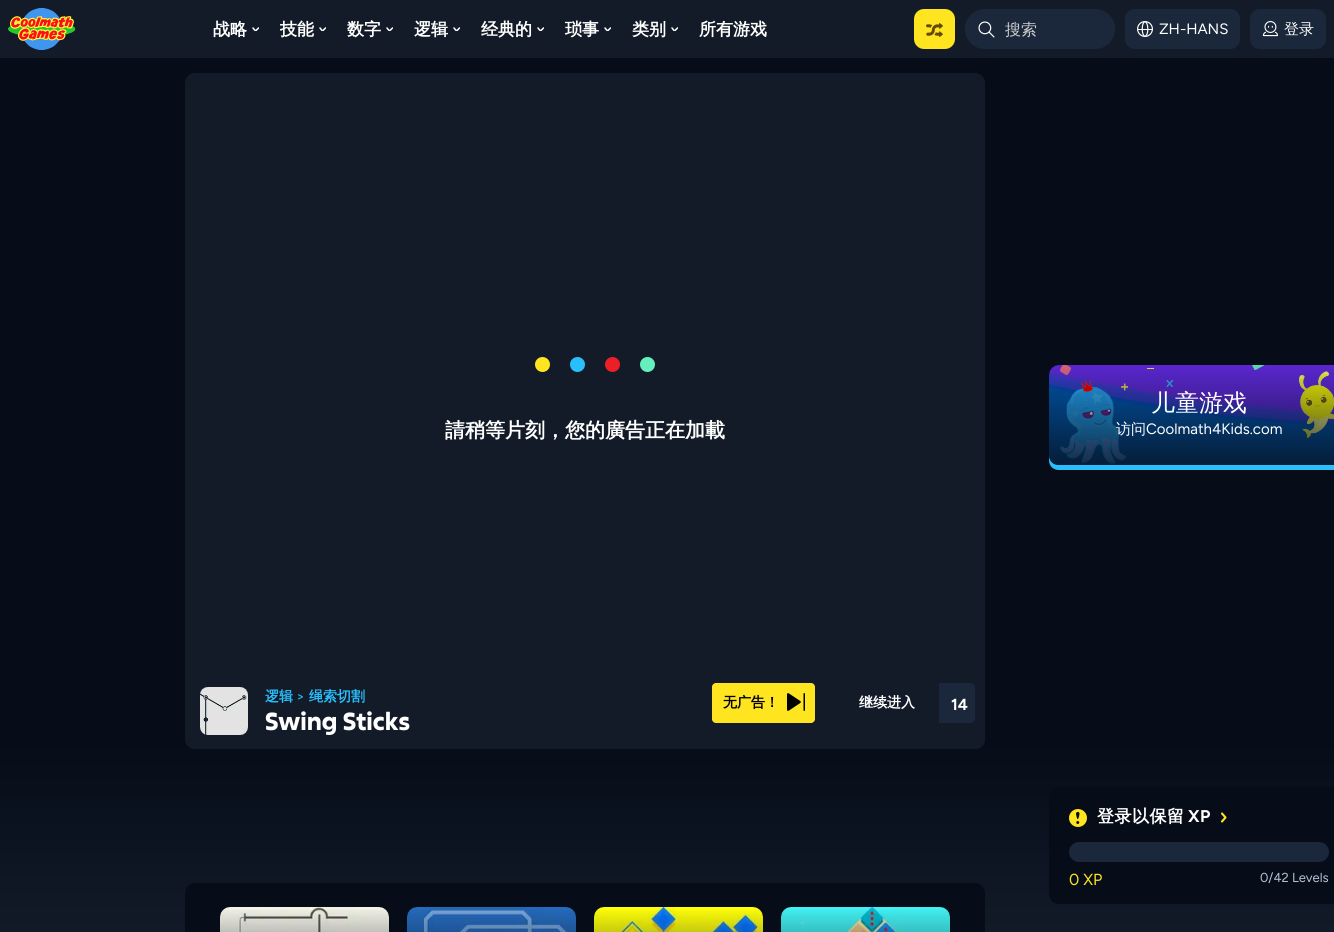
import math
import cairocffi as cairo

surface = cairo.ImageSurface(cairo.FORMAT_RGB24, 1334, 932)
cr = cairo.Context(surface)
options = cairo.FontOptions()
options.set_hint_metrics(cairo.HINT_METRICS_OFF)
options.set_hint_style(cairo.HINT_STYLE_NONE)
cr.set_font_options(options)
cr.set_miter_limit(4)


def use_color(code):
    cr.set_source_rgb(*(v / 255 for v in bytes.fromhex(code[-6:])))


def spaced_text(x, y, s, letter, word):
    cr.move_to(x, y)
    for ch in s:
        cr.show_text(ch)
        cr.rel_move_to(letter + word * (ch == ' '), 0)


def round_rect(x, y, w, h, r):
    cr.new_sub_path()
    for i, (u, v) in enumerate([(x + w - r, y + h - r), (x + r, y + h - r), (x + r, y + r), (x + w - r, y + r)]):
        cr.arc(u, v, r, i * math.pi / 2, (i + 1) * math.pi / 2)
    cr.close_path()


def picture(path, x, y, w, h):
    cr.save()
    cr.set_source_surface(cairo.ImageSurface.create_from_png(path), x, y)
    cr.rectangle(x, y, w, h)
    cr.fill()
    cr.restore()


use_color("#ffffff")
cr.paint()
gradient = cairo.LinearGradient(667, 0, 667, 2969)
gradient.add_color_stop_rgba(0.25, 0.024, 0.051, 0.098, 1)
gradient.add_color_stop_rgba(0.32, 0.075, 0.106, 0.161, 1)
gradient.add_color_stop_rgba(1, 0.075, 0.106, 0.161, 1)
cr.set_source(gradient)
cr.rectangle(0, 58, 1334, 874)
cr.fill()
use_color("#131b29")
cr.rectangle(0, 0, 1334, 58)
cr.fill()
picture("img1.png", 8, 8, 68, 42)
cr.select_font_face("WenQuanYi Zen Hei", cairo.FONT_SLANT_NORMAL, cairo.FONT_WEIGHT_BOLD)
cr.set_font_size(17)
use_color("#ffffff")
cr.move_to(213, 35)
cr.show_text("战略")
cr.save()
cr.rectangle(252, 27, 7, 4)
cr.clip()
cr.new_path()
cr.move_to(255.5, 31)
cr.line_to(253, 28)
cr.move_to(255.5, 31)
cr.line_to(258.5, 28)
cr.set_line_width(1.5)
cr.set_line_cap(cairo.LINE_CAP_ROUND)
cr.set_line_join(cairo.LINE_JOIN_ROUND)
cr.stroke()
cr.restore()
cr.move_to(280, 35)
cr.show_text("技能")
cr.save()
cr.rectangle(319, 27, 7, 4)
cr.clip()
cr.new_path()
cr.move_to(322.5, 31)
cr.line_to(320, 28)
cr.move_to(322.5, 31)
cr.line_to(325.5, 28)
cr.set_line_width(1.5)
cr.set_line_cap(cairo.LINE_CAP_ROUND)
cr.set_line_join(cairo.LINE_JOIN_ROUND)
cr.stroke()
cr.restore()
cr.move_to(347, 35)
cr.show_text("数字")
cr.save()
cr.rectangle(386, 27, 7, 4)
cr.clip()
cr.new_path()
cr.move_to(389.5, 31)
cr.line_to(387, 28)
cr.move_to(389.5, 31)
cr.line_to(392.5, 28)
cr.set_line_width(1.5)
cr.set_line_cap(cairo.LINE_CAP_ROUND)
cr.set_line_join(cairo.LINE_JOIN_ROUND)
cr.stroke()
cr.restore()
cr.move_to(414, 35)
cr.show_text("逻辑")
cr.save()
cr.rectangle(453, 27, 7, 4)
cr.clip()
cr.new_path()
cr.move_to(456.5, 31)
cr.line_to(454, 28)
cr.move_to(456.5, 31)
cr.line_to(459.5, 28)
cr.set_line_width(1.5)
cr.set_line_cap(cairo.LINE_CAP_ROUND)
cr.set_line_join(cairo.LINE_JOIN_ROUND)
cr.stroke()
cr.restore()
cr.move_to(481, 35)
cr.show_text("经典的")
cr.save()
cr.rectangle(537, 27, 7, 4)
cr.clip()
cr.new_path()
cr.move_to(540.5, 31)
cr.line_to(538, 28)
cr.move_to(540.5, 31)
cr.line_to(543.5, 28)
cr.set_line_width(1.5)
cr.set_line_cap(cairo.LINE_CAP_ROUND)
cr.set_line_join(cairo.LINE_JOIN_ROUND)
cr.stroke()
cr.restore()
cr.move_to(565, 35)
cr.show_text("琐事")
cr.save()
cr.rectangle(604, 27, 7, 4)
cr.clip()
cr.new_path()
cr.move_to(607.5, 31)
cr.line_to(605, 28)
cr.move_to(607.5, 31)
cr.line_to(610.5, 28)
cr.set_line_width(1.5)
cr.set_line_cap(cairo.LINE_CAP_ROUND)
cr.set_line_join(cairo.LINE_JOIN_ROUND)
cr.stroke()
cr.restore()
cr.move_to(632, 35)
cr.show_text("类别")
cr.save()
cr.rectangle(671, 27, 7, 4)
cr.clip()
cr.new_path()
cr.move_to(674.5, 31)
cr.line_to(672, 28)
cr.move_to(674.5, 31)
cr.line_to(677.5, 28)
cr.set_line_width(1.5)
cr.set_line_cap(cairo.LINE_CAP_ROUND)
cr.set_line_join(cairo.LINE_JOIN_ROUND)
cr.stroke()
cr.restore()
cr.move_to(699, 35)
cr.show_text("所有游戏")
use_color("#ffe420")
round_rect(914, 9, 41, 40, 10)
cr.fill()
picture("img2.png", 926, 23, 17, 14)
use_color("#1b283b")
round_rect(965, 9, 150, 40, 20)
cr.fill()
picture("img3.png", 978, 21, 17, 17)
cr.select_font_face("WenQuanYi Zen Hei Medium")
cr.set_font_size(16)
use_color("#cdcdcd")
cr.move_to(1005, 35)
cr.show_text("搜索")
use_color("#1b283b")
round_rect(1125, 9, 115, 40, 10)
cr.fill()
picture("img4.png", 1137, 21, 16, 16)
cr.select_font_face("Figtree")
cr.set_font_size(15)
use_color("#ffffff")
cr.move_to(1159, 34)
cr.show_text("ZH-HANS")
use_color("#1b283b")
round_rect(1250, 9, 76, 40, 10)
cr.fill()
picture("img5.png", 1262, 21, 16, 16)
cr.select_font_face("WenQuanYi Zen Hei Medium")
use_color("#ffffff")
cr.move_to(1284, 34)
cr.show_text("登录")
use_color("#131b29")
round_rect(185, 73, 800, 676, 10)
cr.fill()
cr.new_path()
cr.move_to(185, 673)
cr.line_to(985, 673)
cr.line_to(985, 739)
cr.curve_to(985, 744.5, 980.5, 749, 975, 749)
cr.line_to(195, 749)
cr.curve_to(189.5, 749, 185, 744.5, 185, 739)
cr.close_path()
cr.fill()
picture("img6.png", 200, 687, 48, 48)
cr.select_font_face("WenQuanYi Zen Hei", cairo.FONT_SLANT_NORMAL, cairo.FONT_WEIGHT_BOLD)
cr.set_font_size(14)
use_color("#29bffd")
cr.move_to(265, 701)
cr.show_text("逻辑")
cr.select_font_face("Figtree")
cr.move_to(296, 701)
cr.show_text(">")
cr.select_font_face("WenQuanYi Zen Hei", cairo.FONT_SLANT_NORMAL, cairo.FONT_WEIGHT_BOLD)
cr.move_to(309, 701)
cr.show_text("绳索切割")
cr.select_font_face("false", cairo.FONT_SLANT_NORMAL, cairo.FONT_WEIGHT_BOLD)
cr.set_font_size(24)
use_color("#ffffff")
cr.move_to(265, 730)
cr.show_text("Swing Sticks")
use_color("#ffe420")
cr.new_path()
cr.arc(542.5, 364.5, 7.5, 0, 2 * math.pi)
cr.fill()
use_color("#29bffd")
cr.arc(577.5, 364.5, 7.5, 0, 2 * math.pi)
cr.fill()
use_color("#ec1e27")
cr.arc(612.5, 364.5, 7.5, 0, 2 * math.pi)
cr.fill()
use_color("#65efbd")
cr.arc(647.5, 364.5, 7.5, 0, 2 * math.pi)
cr.fill()
cr.select_font_face("WenQuanYi Zen Hei", cairo.FONT_SLANT_NORMAL, cairo.FONT_WEIGHT_BOLD)
cr.set_font_size(20)
use_color("#ffffff")
cr.move_to(445, 437)
cr.show_text("請稍等片刻，您的廣告正在加載")
use_color("#ffe420")
round_rect(712, 683, 103, 40, 4)
cr.fill()
cr.set_font_size(14)
use_color("#000000")
cr.move_to(723, 707)
cr.show_text("无广告！")
picture("img7.png", 787, 693, 18, 18)
use_color("#ffffff")
cr.move_to(859, 707)
cr.show_text("继续进入")
use_color("#1b283b")
cr.new_path()
cr.move_to(939, 683)
cr.line_to(970, 683)
cr.curve_to(973, 683, 975, 685, 975, 688)
cr.line_to(975, 718)
cr.curve_to(975, 721, 973, 723, 970, 723)
cr.line_to(939, 723)
cr.close_path()
cr.fill()
cr.select_font_face("Figtree", cairo.FONT_SLANT_NORMAL, cairo.FONT_WEIGHT_BOLD)
cr.set_font_size(16)
use_color("#ffffff")
cr.move_to(951, 710)
cr.show_text("14")
use_color("#060d19")
round_rect(185, 883, 800, 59, 10)
cr.fill()
picture("img8.png", 220, 907, 169, 25)
gradient = cairo.LinearGradient(305, 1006, 305, 907)
gradient.add_color_stop_rgba(0, 0.024, 0.055, 0.098, 0.85)
gradient.add_color_stop_rgba(1, 0.024, 0.055, 0.098, 0)
cr.set_source(gradient)
cr.rectangle(220, 910, 169, 22)
cr.fill()
picture("img9.png", 407, 907, 169, 25)
gradient = cairo.LinearGradient(492, 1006, 492, 907)
gradient.add_color_stop_rgba(0, 0.024, 0.055, 0.098, 0.85)
gradient.add_color_stop_rgba(1, 0.024, 0.055, 0.098, 0)
cr.set_source(gradient)
cr.rectangle(407, 910, 169, 22)
cr.fill()
picture("img10.png", 594, 907, 169, 25)
gradient = cairo.LinearGradient(679, 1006, 679, 907)
gradient.add_color_stop_rgba(0, 0.024, 0.055, 0.098, 0.85)
gradient.add_color_stop_rgba(1, 0.024, 0.055, 0.098, 0)
cr.set_source(gradient)
cr.rectangle(594, 910, 169, 22)
cr.fill()
picture("img11.png", 781, 907, 169, 25)
gradient = cairo.LinearGradient(866, 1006, 866, 907)
gradient.add_color_stop_rgba(0, 0.024, 0.055, 0.098, 0.85)
gradient.add_color_stop_rgba(1, 0.024, 0.055, 0.098, 0)
cr.set_source(gradient)
cr.rectangle(781, 910, 169, 22)
cr.fill()
picture("img12.png", 1049, 365, 285, 100)
use_color("#29bffd")
cr.new_path()
cr.move_to(1049, 455)
cr.line_to(1049, 460)
cr.curve_to(1049, 466, 1053, 470, 1059, 470)
cr.line_to(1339, 470)
cr.curve_to(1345, 470, 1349, 466, 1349, 460)
cr.line_to(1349, 455)
cr.curve_to(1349, 461, 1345, 465, 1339, 465)
cr.line_to(1059, 465)
cr.curve_to(1053, 465, 1049, 461, 1049, 455)
cr.close_path()
cr.fill()
gradient = cairo.LinearGradient(1199, 465, 1199, 365)
gradient.add_color_stop_rgba(0, 0.024, 0.051, 0.098, 0.8)
gradient.add_color_stop_rgba(1, 0.024, 0.051, 0.098, 0.1)
cr.set_source(gradient)
round_rect(1049, 365, 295, 100, 10)
cr.fill()
cr.select_font_face("WenQuanYi Zen Hei Medium")
cr.set_font_size(24)
use_color("#ffffff")
cr.move_to(1151, 411)
cr.show_text("儿童游戏")
cr.set_font_size(15)
cr.move_to(1116, 434)
cr.show_text("访问")
cr.select_font_face("Figtree")
cr.move_to(1146, 434)
cr.show_text("Coolmath4Kids.com")
use_color("#060d19")
round_rect(1049, 787, 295, 117, 10)
cr.fill()
picture("img13.png", 1069, 809, 18, 18)
cr.select_font_face("WenQuanYi Zen Hei", cairo.FONT_SLANT_NORMAL, cairo.FONT_WEIGHT_BOLD)
cr.set_font_size(17)
use_color("#ffffff")
spaced_text(1097, 822, "登录以保留", 0.5, 0)
cr.select_font_face("Figtree", cairo.FONT_SLANT_NORMAL, cairo.FONT_WEIGHT_BOLD)
spaced_text(1188, 822, "XP", 0.5, 0)
cr.new_path()
cr.move_to(1222, 813.5)
cr.line_to(1225.5, 817.5)
cr.move_to(1222, 821.5)
cr.line_to(1225.5, 817.5)
use_color("#ffe420")
cr.set_line_width(2.1)
cr.set_line_cap(cairo.LINE_CAP_ROUND)
cr.set_line_join(cairo.LINE_JOIN_ROUND)
cr.stroke()
use_color("#1b283b")
round_rect(1074, 842, 255, 20, 10)
cr.fill()
cr.arc(1079, 852, 10, 0, 2 * math.pi)
cr.fill()
cr.select_font_face("Figtree")
cr.set_font_size(16)
use_color("#ffe420")
cr.move_to(1069, 885)
cr.show_text("0 XP")
cr.set_font_size(13)
use_color("#b4c4d4")
cr.move_to(1260, 882)
cr.show_text("0/42 Levels")
surface.write_to_png("result.png")
